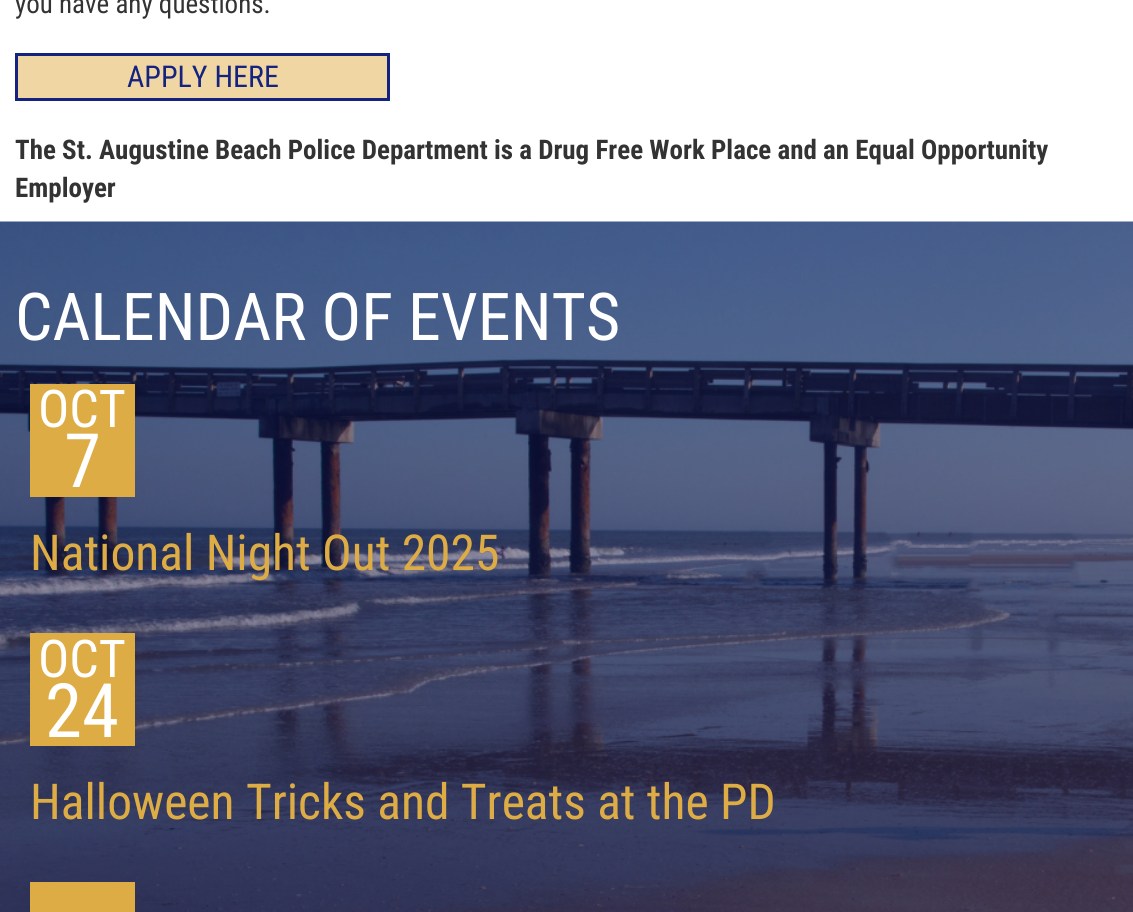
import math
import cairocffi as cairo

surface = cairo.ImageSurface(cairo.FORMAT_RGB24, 1133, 912)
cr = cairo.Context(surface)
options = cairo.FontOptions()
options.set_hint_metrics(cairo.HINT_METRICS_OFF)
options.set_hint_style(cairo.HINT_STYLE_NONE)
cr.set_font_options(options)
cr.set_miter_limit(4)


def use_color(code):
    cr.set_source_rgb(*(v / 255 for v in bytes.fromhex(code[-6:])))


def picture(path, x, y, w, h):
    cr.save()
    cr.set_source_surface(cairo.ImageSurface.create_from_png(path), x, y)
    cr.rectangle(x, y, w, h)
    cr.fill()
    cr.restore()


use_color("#ffffff")
cr.paint()
cr.select_font_face("Roboto Condensed")
cr.set_font_size(27)
use_color("#333333")
cr.move_to(15, 13)
cr.show_text("you have any questions.")
use_color("#efd6a2")
cr.rectangle(16.5, 54.5, 372, 45)
cr.fill_preserve()
use_color("#152380")
cr.set_line_width(3)
cr.stroke()
cr.set_font_size(30)
cr.move_to(127, 87)
cr.show_text("APPLY HERE")
cr.select_font_face("Roboto Condensed", cairo.FONT_SLANT_NORMAL, cairo.FONT_WEIGHT_BOLD)
cr.set_font_size(27)
use_color("#333333")
cr.move_to(15, 159)
cr.show_text("The St. Augustine Beach Police Department is a Drug Free Work Place and an Equal Opportunity")
cr.move_to(15, 197)
cr.show_text("Employer")
picture("img1.png", 0, 221, 1133, 691)
cr.select_font_face("Roboto Condensed")
cr.set_font_size(66)
use_color("#ffffff")
cr.move_to(15, 340)
cr.show_text("CALENDAR OF EVENTS")
use_color("#deac44")
cr.rectangle(30, 384, 105, 113)
cr.fill()
cr.set_font_size(52)
use_color("#ffffff")
cr.move_to(38, 427)
cr.show_text("OCT")
cr.set_font_size(75)
cr.move_to(64, 487)
cr.show_text("7")
cr.set_font_size(49.5)
use_color("#deac44")
cr.move_to(30, 570)
cr.show_text("National Night Out 2025")
cr.rectangle(30, 633, 105, 113)
cr.fill()
cr.set_font_size(52)
use_color("#ffffff")
cr.move_to(38, 677)
cr.show_text("OCT")
cr.set_font_size(75)
cr.move_to(45, 737)
cr.show_text("24")
cr.set_font_size(49.5)
use_color("#deac44")
cr.move_to(30, 819)
cr.show_text("Halloween Tricks and Treats at the PD")
cr.rectangle(30, 882, 105, 30)
cr.fill()
surface.write_to_png("result.png")
